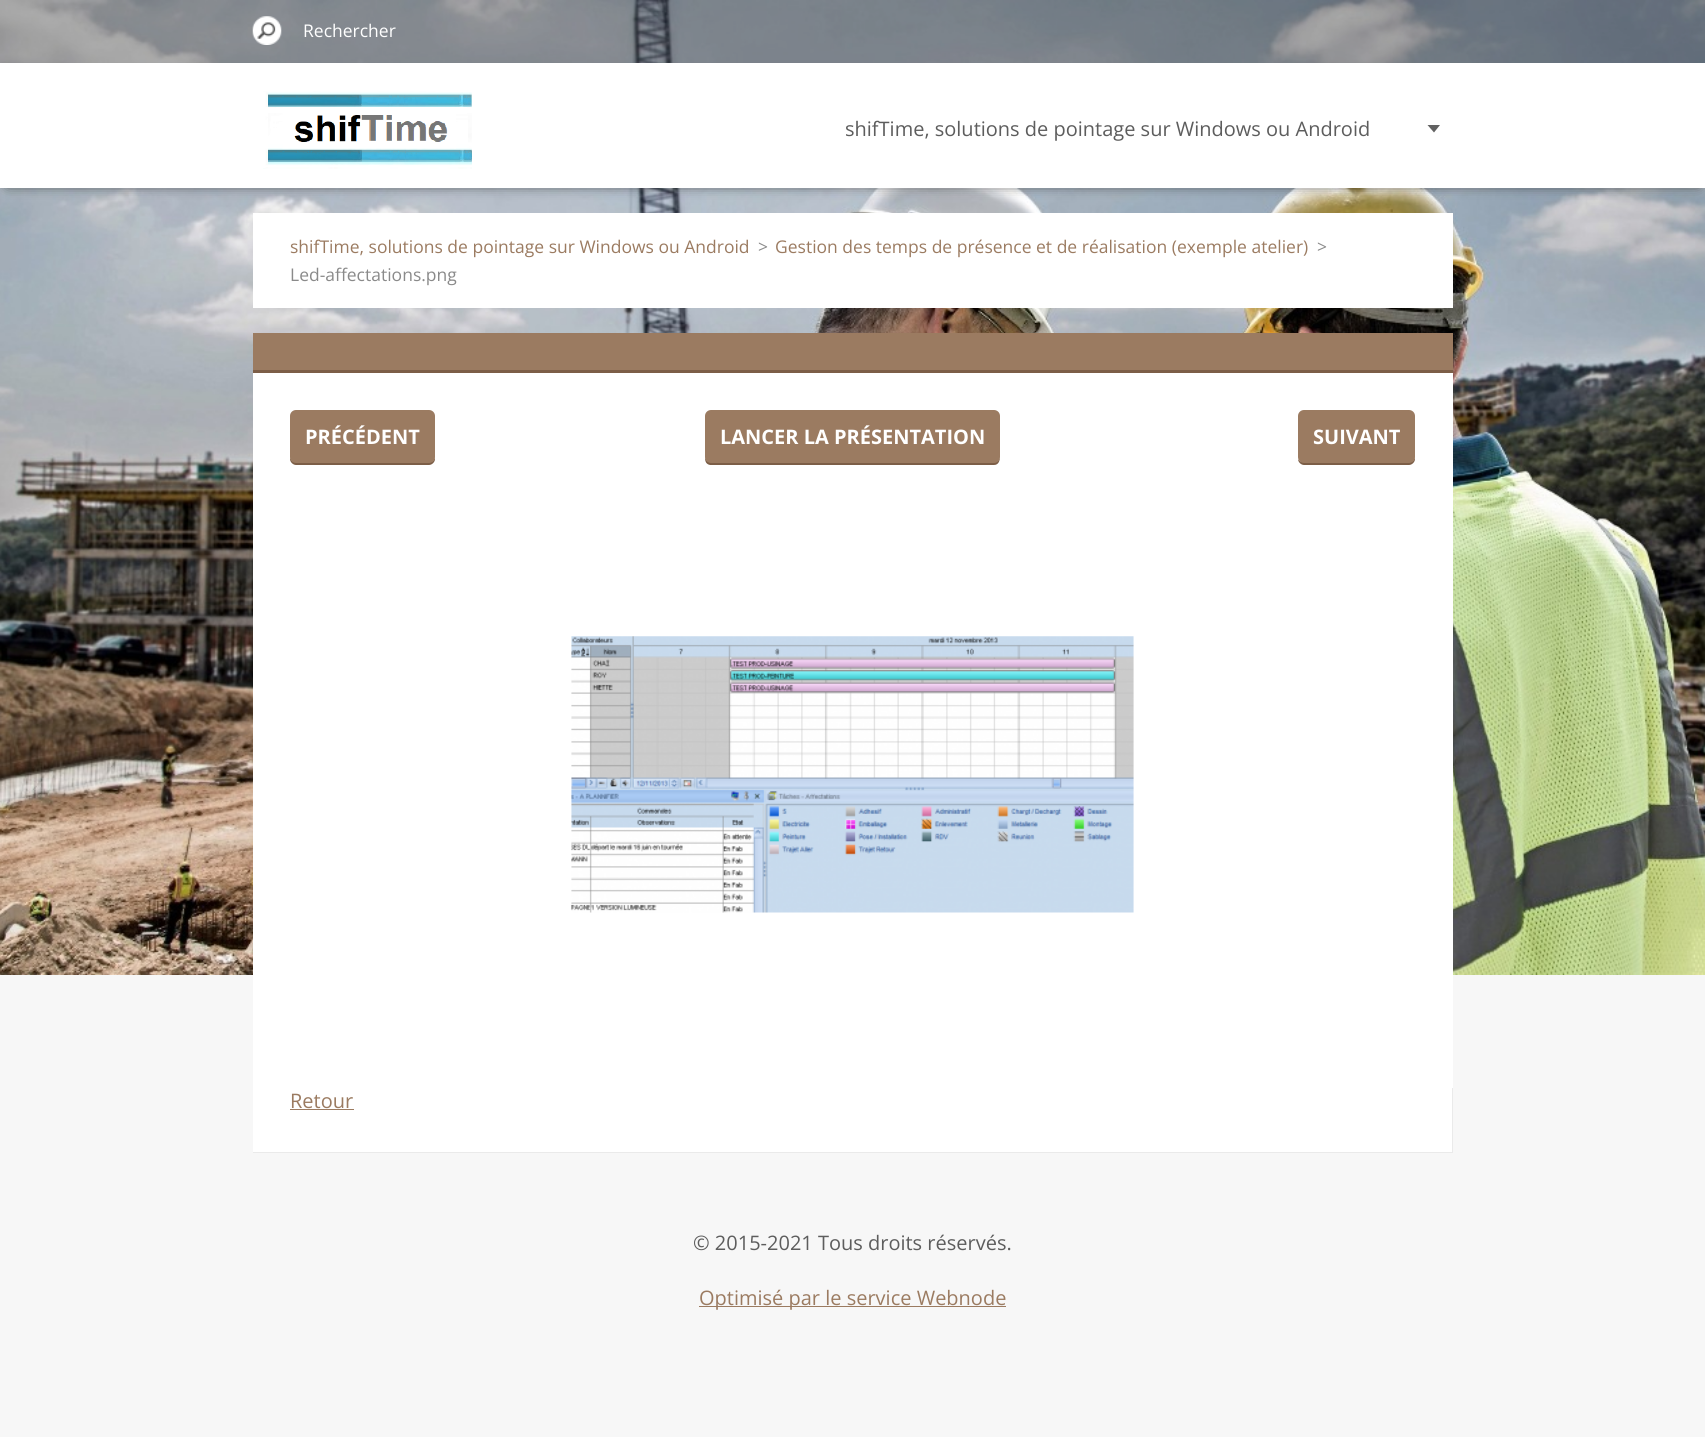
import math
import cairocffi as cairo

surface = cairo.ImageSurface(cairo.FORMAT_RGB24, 1705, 1437)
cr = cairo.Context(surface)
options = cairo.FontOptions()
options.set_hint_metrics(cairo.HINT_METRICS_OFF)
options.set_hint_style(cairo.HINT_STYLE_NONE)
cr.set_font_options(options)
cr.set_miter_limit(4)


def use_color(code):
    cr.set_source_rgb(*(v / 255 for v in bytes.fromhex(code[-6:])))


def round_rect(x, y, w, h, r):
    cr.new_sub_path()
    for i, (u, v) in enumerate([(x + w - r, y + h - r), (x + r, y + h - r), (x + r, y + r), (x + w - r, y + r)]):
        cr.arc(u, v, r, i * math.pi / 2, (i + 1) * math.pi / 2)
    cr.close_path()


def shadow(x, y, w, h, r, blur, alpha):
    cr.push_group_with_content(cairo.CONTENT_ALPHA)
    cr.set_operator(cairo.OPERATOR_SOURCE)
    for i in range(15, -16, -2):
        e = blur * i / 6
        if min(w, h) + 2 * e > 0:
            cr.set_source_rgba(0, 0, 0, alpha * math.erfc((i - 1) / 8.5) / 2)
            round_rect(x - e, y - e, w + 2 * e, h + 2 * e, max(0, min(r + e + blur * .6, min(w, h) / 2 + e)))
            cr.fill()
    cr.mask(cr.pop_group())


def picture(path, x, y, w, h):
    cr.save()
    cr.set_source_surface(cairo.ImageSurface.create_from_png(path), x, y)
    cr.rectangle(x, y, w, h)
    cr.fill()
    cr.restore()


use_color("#f7f7f7")
cr.paint()
picture("img1.png", 0, 0, 1705, 975)
cr.set_source_rgba(0.208, 0.208, 0.208, 0.4)
cr.rectangle(0, 0, 1705, 63)
cr.fill()
picture("img2.png", 252, 16, 30, 29)
cr.select_font_face("Open Sans")
cr.set_font_size(17.5)
use_color("#ffffff")
cr.move_to(303, 37)
cr.show_text("Rechercher")
use_color("#353535")
shadow(8, 75, 1690, 110, 0, 6, 1)
use_color("#ffffff")
cr.rectangle(0, 63, 1705, 125)
cr.fill()
picture("img3.png", 263, 91, 209, 78)
cr.set_font_size(20)
use_color("#5d5d5d")
cr.move_to(845, 136)
cr.show_text("shifTime, solutions de pointage sur Windows ou Android")
use_color("#616161")
cr.new_path()
cr.move_to(1427.5, 125)
cr.line_to(1440, 125)
cr.line_to(1434, 132.5)
cr.close_path()
cr.fill()
use_color("#ffffff")
cr.rectangle(253, 213, 1200, 95)
cr.fill()
cr.set_font_size(17.5)
use_color("#9b7b61")
cr.move_to(290, 253)
cr.show_text("shifTime, solutions de pointage sur Windows ou Android")
use_color("#8a8a8a")
cr.move_to(758, 253)
cr.show_text(">")
use_color("#9b7b61")
cr.move_to(775, 253)
cr.show_text("Gestion des temps de présence et de réalisation (exemple atelier)")
use_color("#8a8a8a")
cr.move_to(1317, 253)
cr.show_text(">")
cr.move_to(290, 281)
cr.show_text("Led-affectations.png")
use_color("#ffffff")
cr.rectangle(253, 373, 1200, 779)
cr.fill()
use_color("#9b7b61")
cr.rectangle(253, 333, 1200, 37)
cr.fill()
use_color("#7c5e47")
cr.rectangle(253, 370, 1200, 3)
cr.fill()
cr.new_path()
cr.move_to(290, 456)
cr.line_to(290, 459)
cr.curve_to(290, 462, 293, 465, 296, 465)
cr.line_to(429, 465)
cr.curve_to(432, 465, 435, 462, 435, 459)
cr.line_to(435, 456)
cr.curve_to(435, 460, 432, 462, 429, 462)
cr.line_to(296, 462)
cr.curve_to(293, 462, 290, 460, 290, 456)
cr.close_path()
cr.fill()
use_color("#9b7b61")
round_rect(290, 410, 145, 53, 6)
cr.fill()
cr.select_font_face("Open Sans", cairo.FONT_SLANT_NORMAL, cairo.FONT_WEIGHT_BOLD)
cr.set_font_size(20)
use_color("#ffffff")
cr.move_to(305, 444)
cr.show_text("PRÉCÉDENT")
use_color("#7c5e47")
cr.new_path()
cr.move_to(705, 456)
cr.curve_to(705, 460, 705, 464, 710, 465)
cr.line_to(994, 465)
cr.curve_to(999, 465, 1000, 460, 1000, 456)
cr.curve_to(1000, 460, 997, 462, 994, 462)
cr.line_to(711, 462)
cr.curve_to(708, 462, 705, 460, 705, 456)
cr.close_path()
cr.fill()
use_color("#9b7b61")
round_rect(705, 410, 295, 53, 6)
cr.fill()
use_color("#ffffff")
cr.move_to(720, 444)
cr.show_text("LANCER LA PRÉSENTATION")
use_color("#7c5e47")
cr.new_path()
cr.move_to(1298, 459)
cr.curve_to(1298, 462, 1301, 465, 1304, 465)
cr.line_to(1409, 465)
cr.curve_to(1412, 465, 1415, 462, 1415, 459)
cr.line_to(1415, 456)
cr.curve_to(1415, 460, 1412, 462, 1409, 462)
cr.line_to(1304, 462)
cr.curve_to(1301, 462, 1299, 461, 1298, 459)
cr.close_path()
cr.fill()
use_color("#9b7b61")
round_rect(1298, 410, 117, 53, 6)
cr.fill()
use_color("#ffffff")
cr.move_to(1313, 444)
cr.show_text("SUIVANT")
picture("img4.png", 571, 636, 563, 277)
cr.save()
cr.rectangle(253, 333, 1200, 820)
cr.clip()
use_color("#eaeaea")
cr.new_path()
cr.move_to(253, 1152)
cr.line_to(253, 1155)
cr.line_to(1453, 1155)
cr.line_to(1453, 1088)
cr.line_to(1452, 1088)
cr.line_to(1452, 1152)
cr.close_path()
cr.fill()
cr.restore()
cr.select_font_face("Open Sans")
use_color("#9b7b61")
cr.move_to(290, 1108)
cr.show_text("Retour")
cr.rectangle(290, 1109, 64, 1)
cr.fill()
use_color("#5d5d5d")
cr.move_to(693, 1250)
cr.show_text("© 2015-2021 Tous droits réservés.")
use_color("#9b7b61")
cr.rectangle(699, 1306, 307, 1)
cr.fill()
cr.move_to(699, 1305)
cr.show_text("Optimisé par le service Webnode")
surface.write_to_png("result.png")
